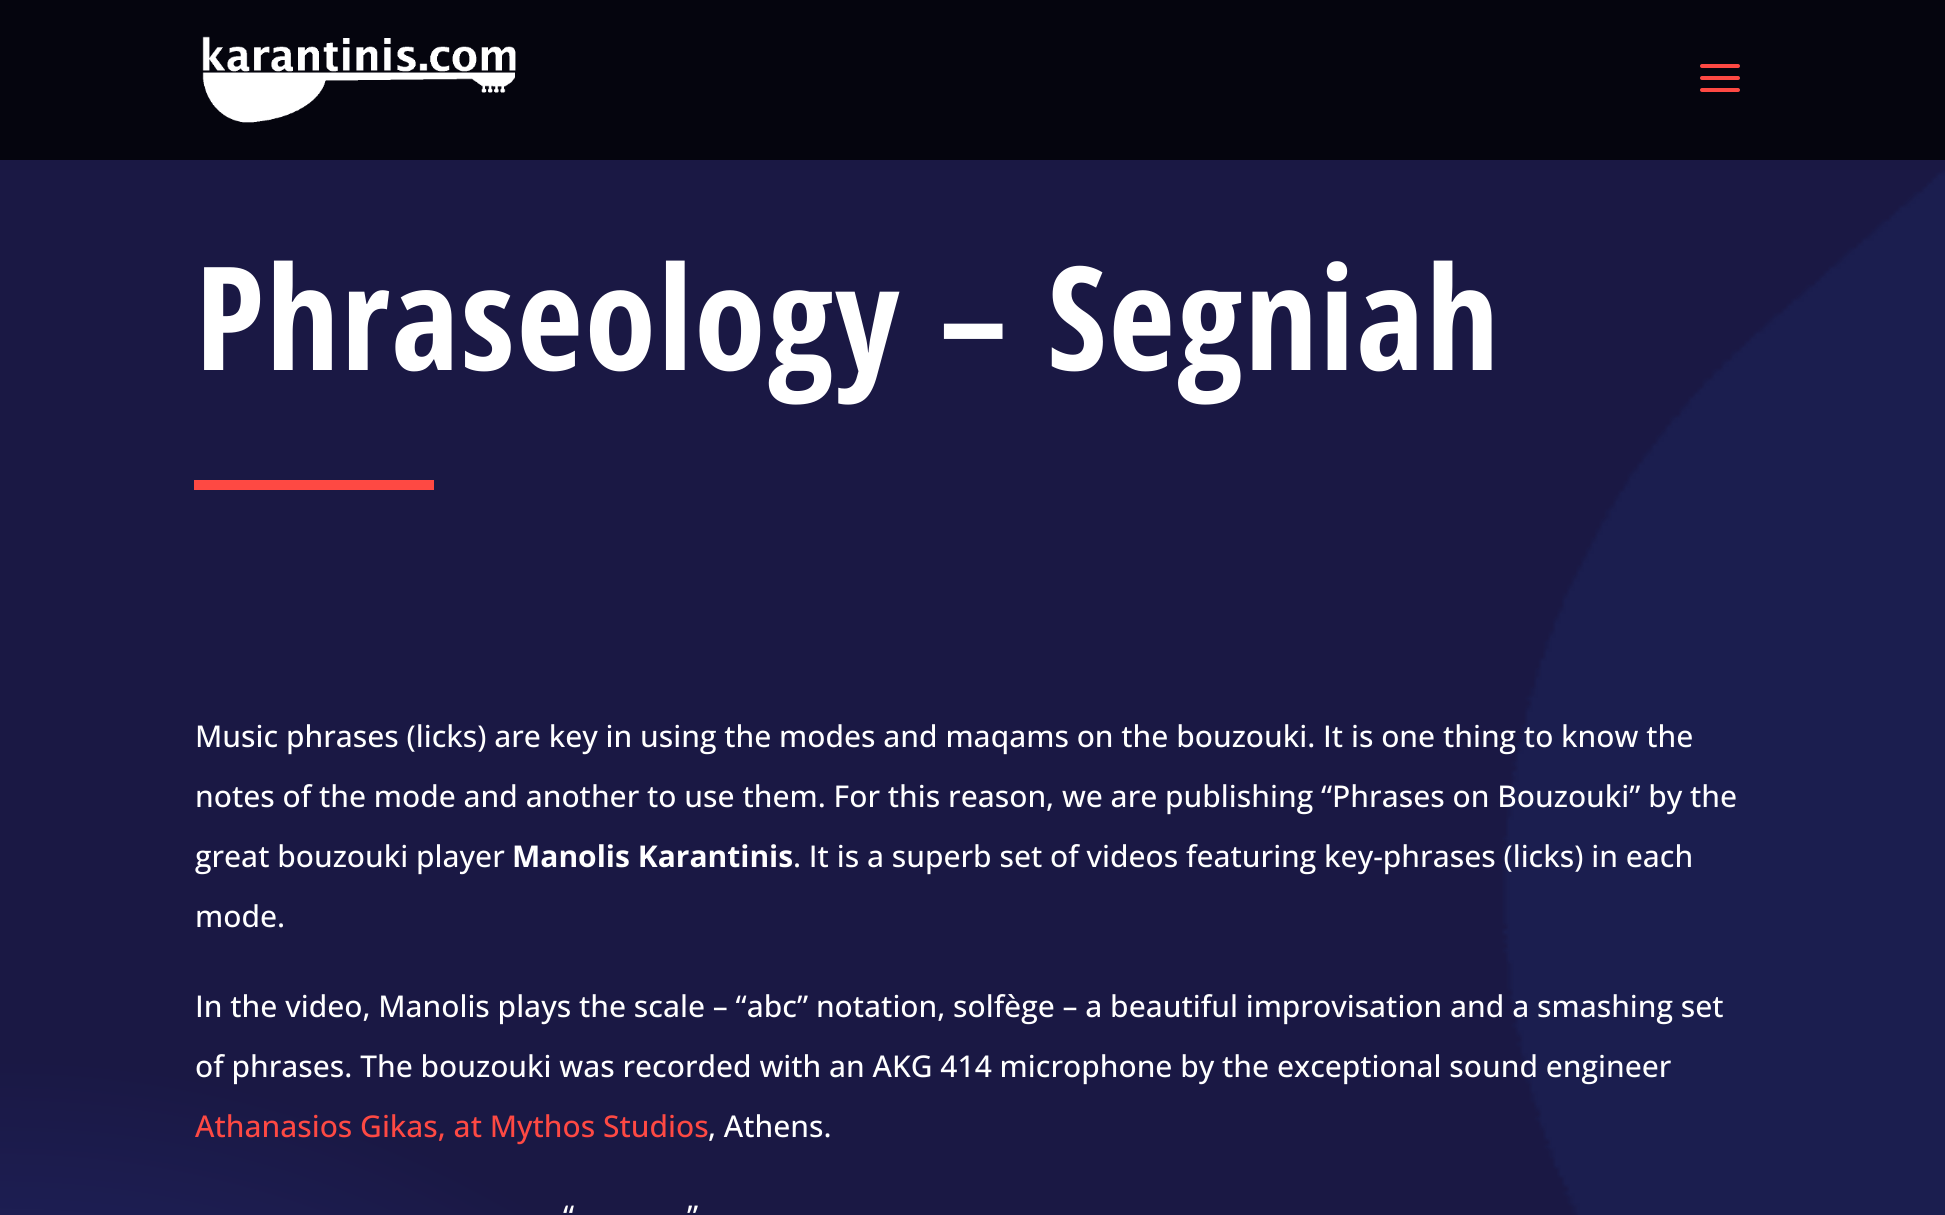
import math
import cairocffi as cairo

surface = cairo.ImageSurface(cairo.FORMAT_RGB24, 1945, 1215)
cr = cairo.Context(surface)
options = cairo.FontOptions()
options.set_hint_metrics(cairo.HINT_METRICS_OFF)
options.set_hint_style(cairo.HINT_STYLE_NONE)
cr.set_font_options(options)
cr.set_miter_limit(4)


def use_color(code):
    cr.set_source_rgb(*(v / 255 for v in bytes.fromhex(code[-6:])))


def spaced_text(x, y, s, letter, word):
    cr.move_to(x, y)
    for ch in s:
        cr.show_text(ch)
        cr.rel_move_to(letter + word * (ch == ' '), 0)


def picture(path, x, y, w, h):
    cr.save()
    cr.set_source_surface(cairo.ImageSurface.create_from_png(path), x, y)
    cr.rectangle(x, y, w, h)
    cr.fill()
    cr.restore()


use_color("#ffffff")
cr.paint()
use_color("#05050e")
cr.rectangle(0, 0, 1945, 160)
cr.fill()
picture("img1.png", 202, 36, 314, 87)
picture("img2.png", 1700, 64, 40, 28)
gradient = cairo.RadialGradient(0, 2086, 0, 0, 2086, 2853)
gradient.add_color_stop_rgba(0, 0.169, 0.243, 0.627, 1)
gradient.add_color_stop_rgba(0.36, 0.102, 0.094, 0.267, 1)
cr.set_source(gradient)
cr.rectangle(0, 160, 1945, 1055)
cr.fill()
cr.select_font_face("Open Sans Condensed", cairo.FONT_SLANT_NORMAL, cairo.FONT_WEIGHT_BOLD)
cr.set_font_size(144)
use_color("#ffffff")
spaced_text(195, 370, "Phraseology – Segniah", 2, 0)
use_color("#fe4943")
cr.rectangle(194, 480, 240, 10)
cr.fill()
picture("img3.png", 1502, 170, 443, 1045)
cr.select_font_face("Open Sans Medium")
cr.set_font_size(30)
use_color("#ffffff")
cr.move_to(195, 747)
cr.show_text("Music phrases (licks) are key in using the modes and maqams on the bouzouki. It is one thing to know the")
cr.move_to(195, 807)
cr.show_text("notes of the mode and another to use them. For this reason, we are publishing “Phrases on Bouzouki” by the")
cr.move_to(195, 867)
cr.show_text("great bouzouki player")
cr.select_font_face("Open Sans", cairo.FONT_SLANT_NORMAL, cairo.FONT_WEIGHT_BOLD)
cr.move_to(512, 867)
cr.show_text("Manolis Karantinis")
cr.select_font_face("Open Sans Medium")
cr.move_to(793, 867)
cr.show_text(". It is a superb set of videos featuring key-phrases (licks) in each")
cr.move_to(195, 927)
cr.show_text("mode.")
cr.move_to(195, 1017)
cr.show_text("In the video, Manolis plays the scale – “abc” notation, solfège – a beautiful improvisation and a smashing set")
cr.move_to(195, 1077)
cr.show_text("of phrases. The bouzouki was recorded with an AKG 414 microphone by the exceptional sound engineer")
use_color("#fe4943")
cr.move_to(195, 1137)
cr.show_text("Athanasios Gikas, at Mythos Studios")
use_color("#ffffff")
cr.move_to(708, 1137)
cr.show_text(", Athens.")
cr.move_to(563, 1227)
cr.show_text("“")
cr.move_to(687, 1227)
cr.show_text("”")
surface.write_to_png("result.png")
